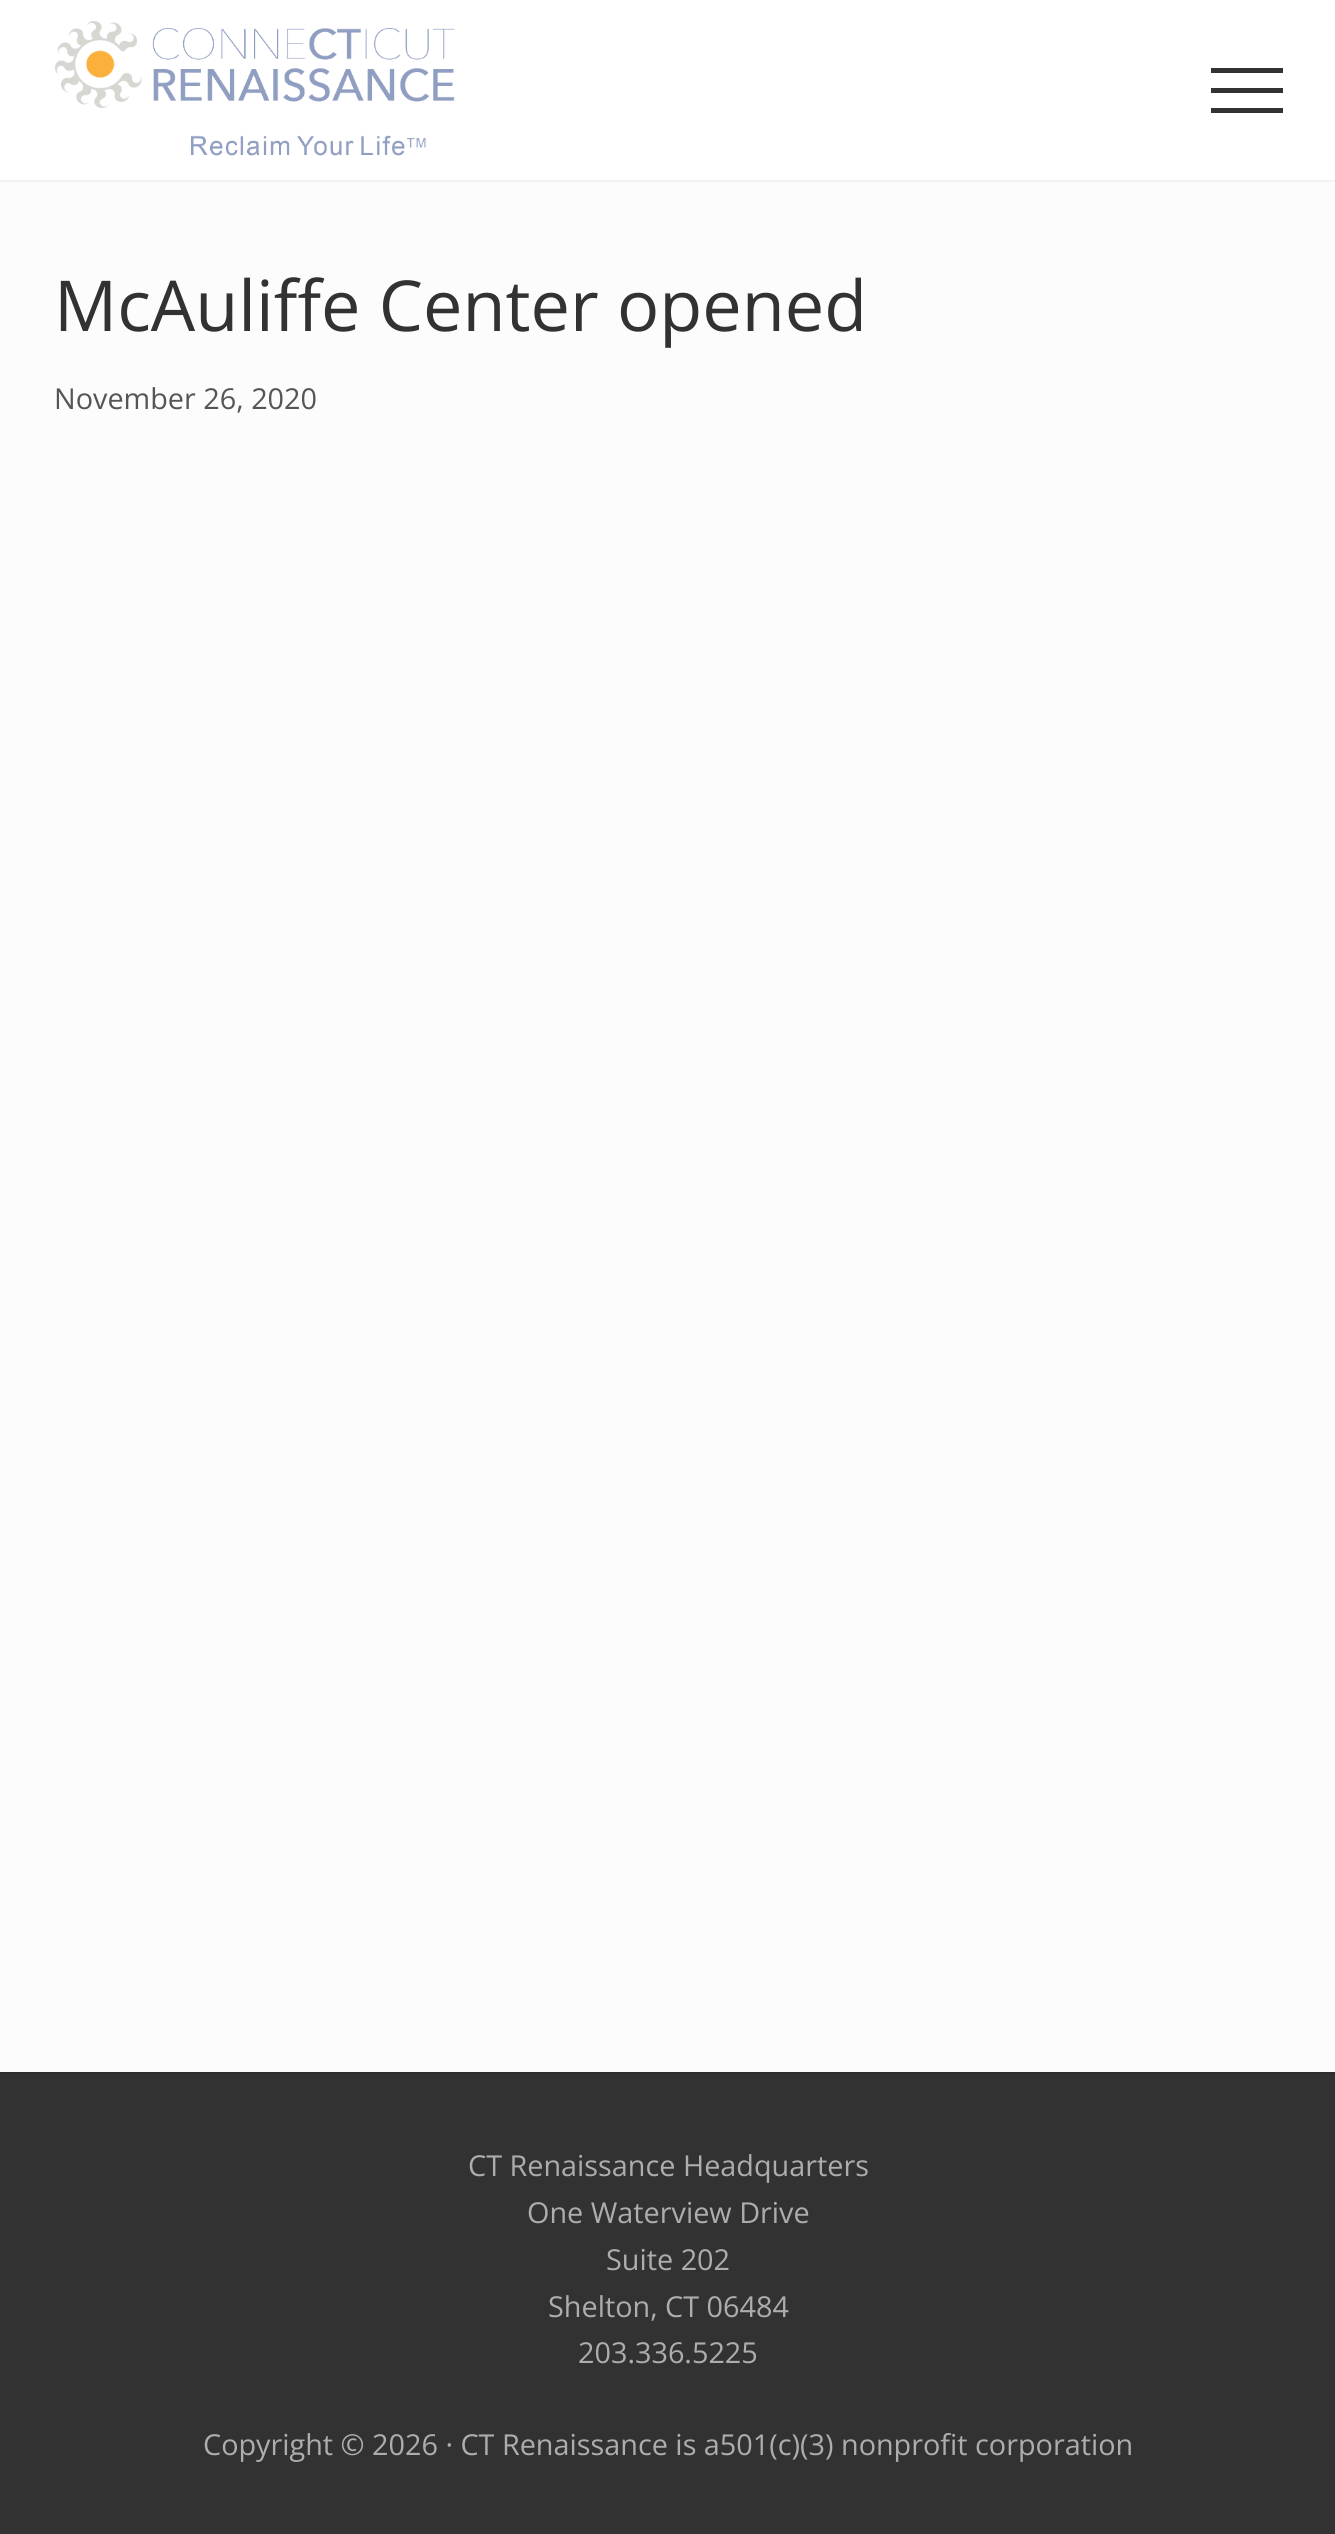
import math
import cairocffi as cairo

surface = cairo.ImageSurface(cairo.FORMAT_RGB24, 1335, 2534)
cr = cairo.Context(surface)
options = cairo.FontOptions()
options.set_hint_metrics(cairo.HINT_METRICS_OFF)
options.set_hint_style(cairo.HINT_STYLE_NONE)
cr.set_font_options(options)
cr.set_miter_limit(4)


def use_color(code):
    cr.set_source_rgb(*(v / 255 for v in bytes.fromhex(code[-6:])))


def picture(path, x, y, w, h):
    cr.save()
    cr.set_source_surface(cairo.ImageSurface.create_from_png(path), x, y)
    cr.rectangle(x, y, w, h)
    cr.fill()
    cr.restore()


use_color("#fcfcfc")
cr.paint()
use_color("#ffffff")
cr.rectangle(0, 0, 1335, 180)
cr.fill()
use_color("#f2f2f2")
cr.rectangle(0, 180, 1335, 2)
cr.fill()
picture("img1.png", 54, 21, 401, 135)
use_color("#323232")
cr.rectangle(1211, 88, 72, 5)
cr.fill()
cr.rectangle(1211, 68, 72, 5)
cr.fill()
cr.rectangle(1211, 108, 72, 5)
cr.fill()
cr.select_font_face("Open Sans")
cr.set_font_size(70.25)
cr.move_to(54, 331)
cr.show_text("McAuliffe Center opened")
cr.set_font_size(28.8)
use_color("#555555")
cr.move_to(54, 409)
cr.show_text("November 26, 2020")
use_color("#323232")
cr.rectangle(0, 2074, 1335, 460)
cr.fill()
use_color("#2d2d2d")
cr.rectangle(0, 2072, 1335, 2)
cr.fill()
use_color("#adadad")
cr.move_to(468, 2176)
cr.show_text("CT Renaissance Headquarters")
cr.move_to(527, 2223)
cr.show_text("One Waterview Drive")
cr.move_to(606, 2270)
cr.show_text("Suite 202")
cr.move_to(548, 2317)
cr.show_text("Shelton, CT 06484")
cr.move_to(578, 2363)
cr.show_text("203.336.5225")
cr.move_to(203, 2455)
cr.show_text("Copyright © 2026 · CT Renaissance is a501(c)(3) nonprofit corporation")
surface.write_to_png("result.png")
